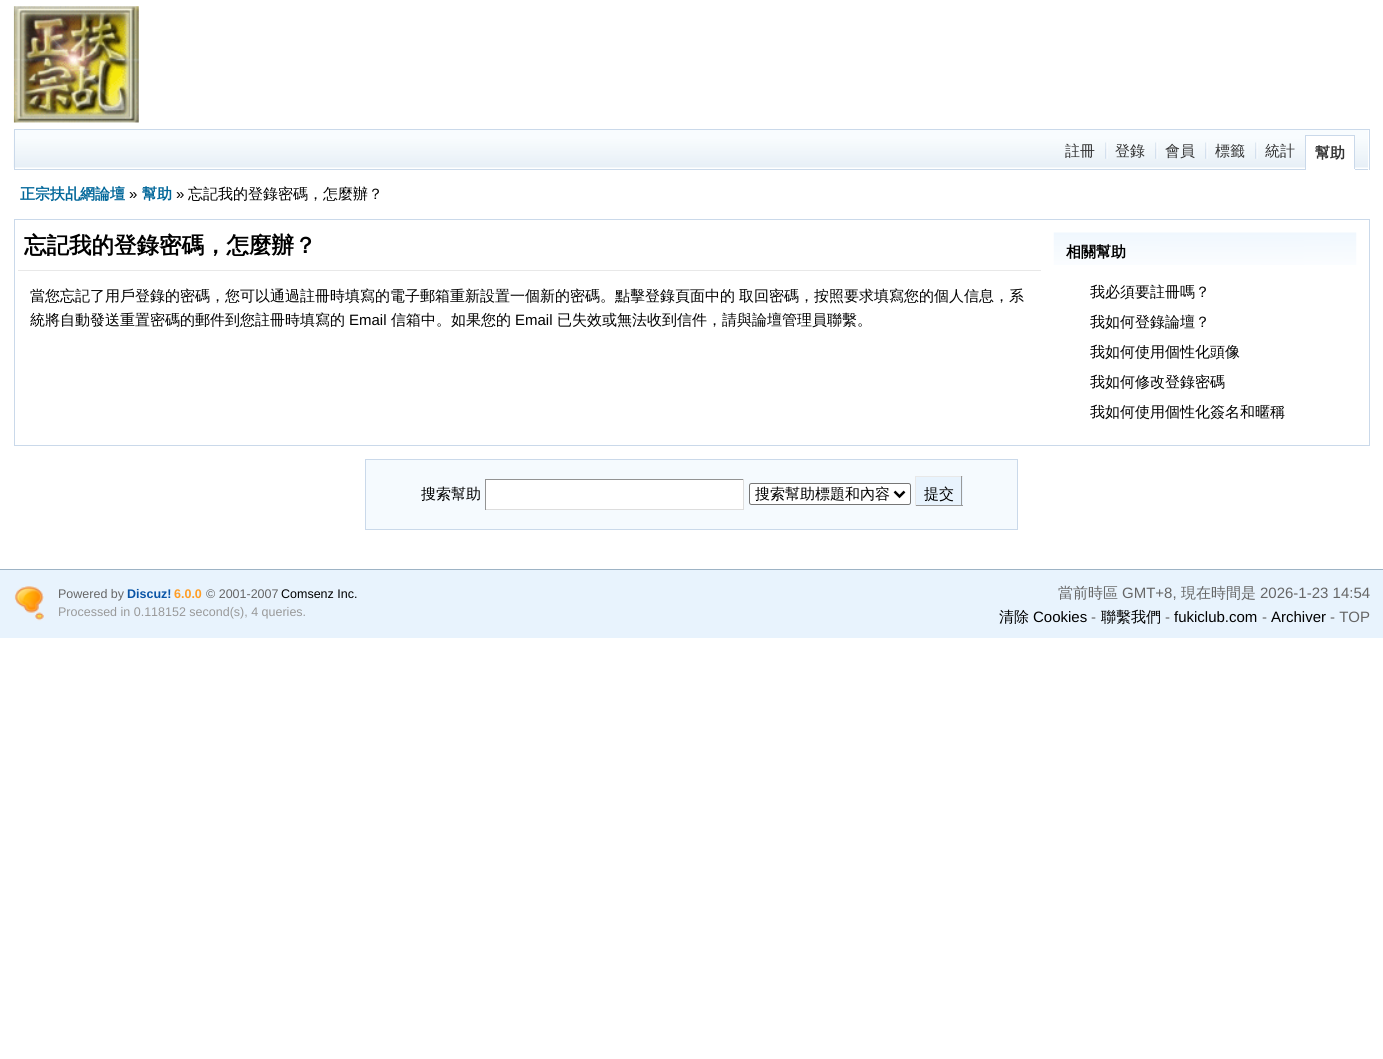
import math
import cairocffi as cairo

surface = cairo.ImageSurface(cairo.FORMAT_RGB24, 1383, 1059)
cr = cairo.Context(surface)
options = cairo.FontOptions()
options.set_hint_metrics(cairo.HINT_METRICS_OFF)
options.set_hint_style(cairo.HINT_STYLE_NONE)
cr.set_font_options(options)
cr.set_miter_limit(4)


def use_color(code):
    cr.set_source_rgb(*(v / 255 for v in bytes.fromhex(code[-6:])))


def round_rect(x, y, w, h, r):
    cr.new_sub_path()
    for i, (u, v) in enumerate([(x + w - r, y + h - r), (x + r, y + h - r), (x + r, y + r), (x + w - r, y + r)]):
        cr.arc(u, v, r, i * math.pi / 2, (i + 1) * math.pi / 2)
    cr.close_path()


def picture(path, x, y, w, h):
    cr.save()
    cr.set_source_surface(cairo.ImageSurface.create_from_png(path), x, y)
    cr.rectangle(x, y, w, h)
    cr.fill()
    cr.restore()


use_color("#ffffff")
cr.paint()
picture("img1.png", 13, 6, 126, 117)
picture("img2.png", 13, 130, 1355, 38)
cr.rectangle(14.5, 129.5, 1355, 40)
use_color("#cad9ea")
cr.set_line_width(1)
cr.stroke()
use_color("#ffffff")
cr.rectangle(1368, 169, 1, 1)
cr.fill()
cr.select_font_face("WenQuanYi Zen Hei Medium")
cr.set_font_size(15)
use_color("#333333")
cr.move_to(1065, 156)
cr.show_text("註冊")
picture("img3.png", 1105, 142, 3, 17)
cr.move_to(1115, 156)
cr.show_text("登錄")
picture("img3.png", 1155, 142, 3, 17)
cr.move_to(1165, 156)
cr.show_text("會員")
picture("img3.png", 1205, 142, 3, 17)
cr.move_to(1215, 156)
cr.show_text("標籤")
picture("img3.png", 1255, 142, 3, 17)
cr.move_to(1265, 156)
cr.show_text("統計")
use_color("#ffffff")
cr.rectangle(1306, 136, 48, 32)
cr.fill()
use_color("#cad9ea")
cr.rectangle(1305, 135, 50, 1)
cr.fill()
cr.rectangle(1354, 135, 1, 35)
cr.fill()
use_color("#ffffff")
cr.rectangle(1305, 169, 50, 1)
cr.fill()
use_color("#cad9ea")
cr.rectangle(1305, 135, 1, 35)
cr.fill()
cr.select_font_face("WenQuanYi Zen Hei", cairo.FONT_SLANT_NORMAL, cairo.FONT_WEIGHT_BOLD)
use_color("#333333")
cr.move_to(1315, 158)
cr.show_text("幫助")
use_color("#006699")
cr.move_to(20, 199)
cr.show_text("正宗扶乩網論壇")
cr.select_font_face("Liberation Sans")
use_color("#000000")
cr.move_to(129, 199)
cr.show_text("»")
cr.select_font_face("WenQuanYi Zen Hei", cairo.FONT_SLANT_NORMAL, cairo.FONT_WEIGHT_BOLD)
use_color("#006699")
cr.move_to(142, 199)
cr.show_text("幫助")
cr.select_font_face("Liberation Sans")
use_color("#000000")
cr.move_to(176, 199)
cr.show_text("»")
cr.select_font_face("WenQuanYi Zen Hei Medium")
cr.move_to(188, 199)
cr.show_text("忘記我的登錄密碼，怎麼辦？")
cr.rectangle(14.5, 219.5, 1355, 226)
use_color("#cad9ea")
cr.stroke()
use_color("#e8e8e8")
cr.rectangle(18, 270, 1023, 1)
cr.fill()
cr.select_font_face("WenQuanYi Zen Hei", cairo.FONT_SLANT_NORMAL, cairo.FONT_WEIGHT_BOLD)
cr.set_font_size(22.5)
use_color("#000000")
cr.move_to(24, 253)
cr.show_text("忘記我的登錄密碼，怎麼辦？")
cr.select_font_face("WenQuanYi Zen Hei Medium")
cr.set_font_size(15)
cr.move_to(30, 301)
cr.show_text("當您忘記了用戶登錄的密碼，您可以通過註冊時填寫的電子郵箱重新設置一個新的密碼。點擊登錄頁面中的")
cr.move_to(739, 301)
cr.show_text("取回密碼，按照要求填寫您的個人信息，系")
cr.move_to(30, 325)
cr.show_text("統將自動發送重置密碼的郵件到您註冊時填寫的")
cr.select_font_face("Liberation Sans")
cr.move_to(349, 325)
cr.show_text("Email")
cr.select_font_face("WenQuanYi Zen Hei Medium")
cr.move_to(391, 325)
cr.show_text("信箱中。如果您的")
cr.select_font_face("Liberation Sans")
cr.move_to(515, 325)
cr.show_text("Email")
cr.select_font_face("WenQuanYi Zen Hei Medium")
cr.move_to(557, 325)
cr.show_text("已失效或無法收到信件，請與論壇管理員聯繫。")
picture("img4.png", 1053, 232, 304, 33)
cr.select_font_face("WenQuanYi Zen Hei", cairo.FONT_SLANT_NORMAL, cairo.FONT_WEIGHT_BOLD)
cr.move_to(1066, 257)
cr.show_text("相關幫助")
cr.select_font_face("WenQuanYi Zen Hei Medium")
cr.move_to(1090, 297)
cr.show_text("我必須要註冊嗎？")
cr.move_to(1090, 327)
cr.show_text("我如何登錄論壇？")
cr.move_to(1090, 357)
cr.show_text("我如何使用個性化頭像")
cr.move_to(1090, 387)
cr.show_text("我如何修改登錄密碼")
cr.move_to(1090, 417)
cr.show_text("我如何使用個性化簽名和暱稱")
use_color("#f5fafe")
cr.rectangle(365.5, 459.5, 652, 70)
cr.fill_preserve()
use_color("#cad9ea")
cr.stroke()
use_color("#000000")
cr.move_to(421, 499)
cr.show_text("搜索幫助")
use_color("#ffffff")
cr.rectangle(486, 480, 257, 29)
cr.fill()
use_color("#939393")
cr.rectangle(485, 479, 259, 1)
cr.fill()
use_color("#dddddd")
cr.rectangle(743, 479, 1, 31)
cr.fill()
cr.rectangle(485, 509, 259, 1)
cr.fill()
use_color("#939393")
cr.rectangle(485, 479, 1, 31)
cr.fill()
use_color("#ffffff")
round_rect(749.5, 483.5, 161, 21, 2)
cr.fill_preserve()
use_color("#767676")
cr.stroke()
cr.new_path()
cr.move_to(894.5, 491.5)
cr.line_to(899.5, 496.5)
cr.line_to(904.5, 491.5)
use_color("#000000")
cr.set_line_width(2.5)
cr.stroke()
cr.move_to(755, 499)
cr.show_text("搜索幫助標題和內容")
use_color("#e8f3fd")
cr.rectangle(916, 477, 47, 28)
cr.fill()
use_color("#e8e8e8")
cr.rectangle(915, 476, 48, 1)
cr.fill()
use_color("#999999")
cr.rectangle(961, 476, 1, 30)
cr.fill()
cr.rectangle(915, 505, 48, 1)
cr.fill()
use_color("#e8e8e8")
cr.rectangle(915, 476, 1, 30)
cr.fill()
use_color("#000000")
cr.move_to(924, 499)
cr.show_text("提交")
use_color("#e8f3fd")
cr.rectangle(0, 570, 1383, 68)
cr.fill()
use_color("#9db3c5")
cr.rectangle(0, 569, 1383, 1)
cr.fill()
picture("img5.png", 14, 586, 30, 35)
cr.select_font_face("Liberation Sans")
cr.set_font_size(12.5)
use_color("#666666")
cr.move_to(58, 598)
cr.show_text("Powered by")
cr.select_font_face("Liberation Sans", cairo.FONT_SLANT_NORMAL, cairo.FONT_WEIGHT_BOLD)
use_color("#0954a6")
cr.move_to(127, 598)
cr.show_text("Discuz!")
use_color("#ff9d25")
cr.move_to(174, 598)
cr.show_text("6.0.0")
cr.select_font_face("Liberation Sans")
use_color("#666666")
cr.move_to(206, 598)
cr.show_text("© 2001-2007")
use_color("#000000")
cr.move_to(281, 598)
cr.show_text("Comsenz Inc.")
cr.select_font_face("WenQuanYi Zen Hei Medium")
cr.set_font_size(15)
use_color("#666666")
cr.move_to(1058, 598)
cr.show_text("當前時區")
cr.select_font_face("Liberation Sans")
cr.move_to(1122, 598)
cr.show_text("GMT+8,")
cr.select_font_face("WenQuanYi Zen Hei Medium")
cr.move_to(1181, 598)
cr.show_text("現在時間是")
cr.select_font_face("Liberation Sans")
cr.move_to(1260, 598)
cr.show_text("2026-1-23 14:54")
cr.select_font_face("WenQuanYi Zen Hei Medium")
use_color("#000000")
cr.move_to(999, 622)
cr.show_text("清除")
cr.select_font_face("Liberation Sans")
cr.move_to(1033, 622)
cr.show_text("Cookies")
use_color("#666666")
cr.move_to(1091, 622)
cr.show_text("-")
cr.select_font_face("WenQuanYi Zen Hei Medium")
use_color("#000000")
cr.move_to(1101, 622)
cr.show_text("聯繫我們")
cr.select_font_face("Liberation Sans")
use_color("#666666")
cr.move_to(1165, 622)
cr.show_text("-")
use_color("#000000")
cr.move_to(1174, 622)
cr.show_text("fukiclub.com")
use_color("#666666")
cr.move_to(1262, 622)
cr.show_text("-")
use_color("#000000")
cr.move_to(1271, 622)
cr.show_text("Archiver")
use_color("#666666")
cr.move_to(1330, 622)
cr.show_text("- TOP")
cr.set_font_size(12.5)
use_color("#999999")
cr.move_to(58, 616)
cr.show_text("Processed in 0.118152 second(s), 4 queries.")
surface.write_to_png("result.png")
